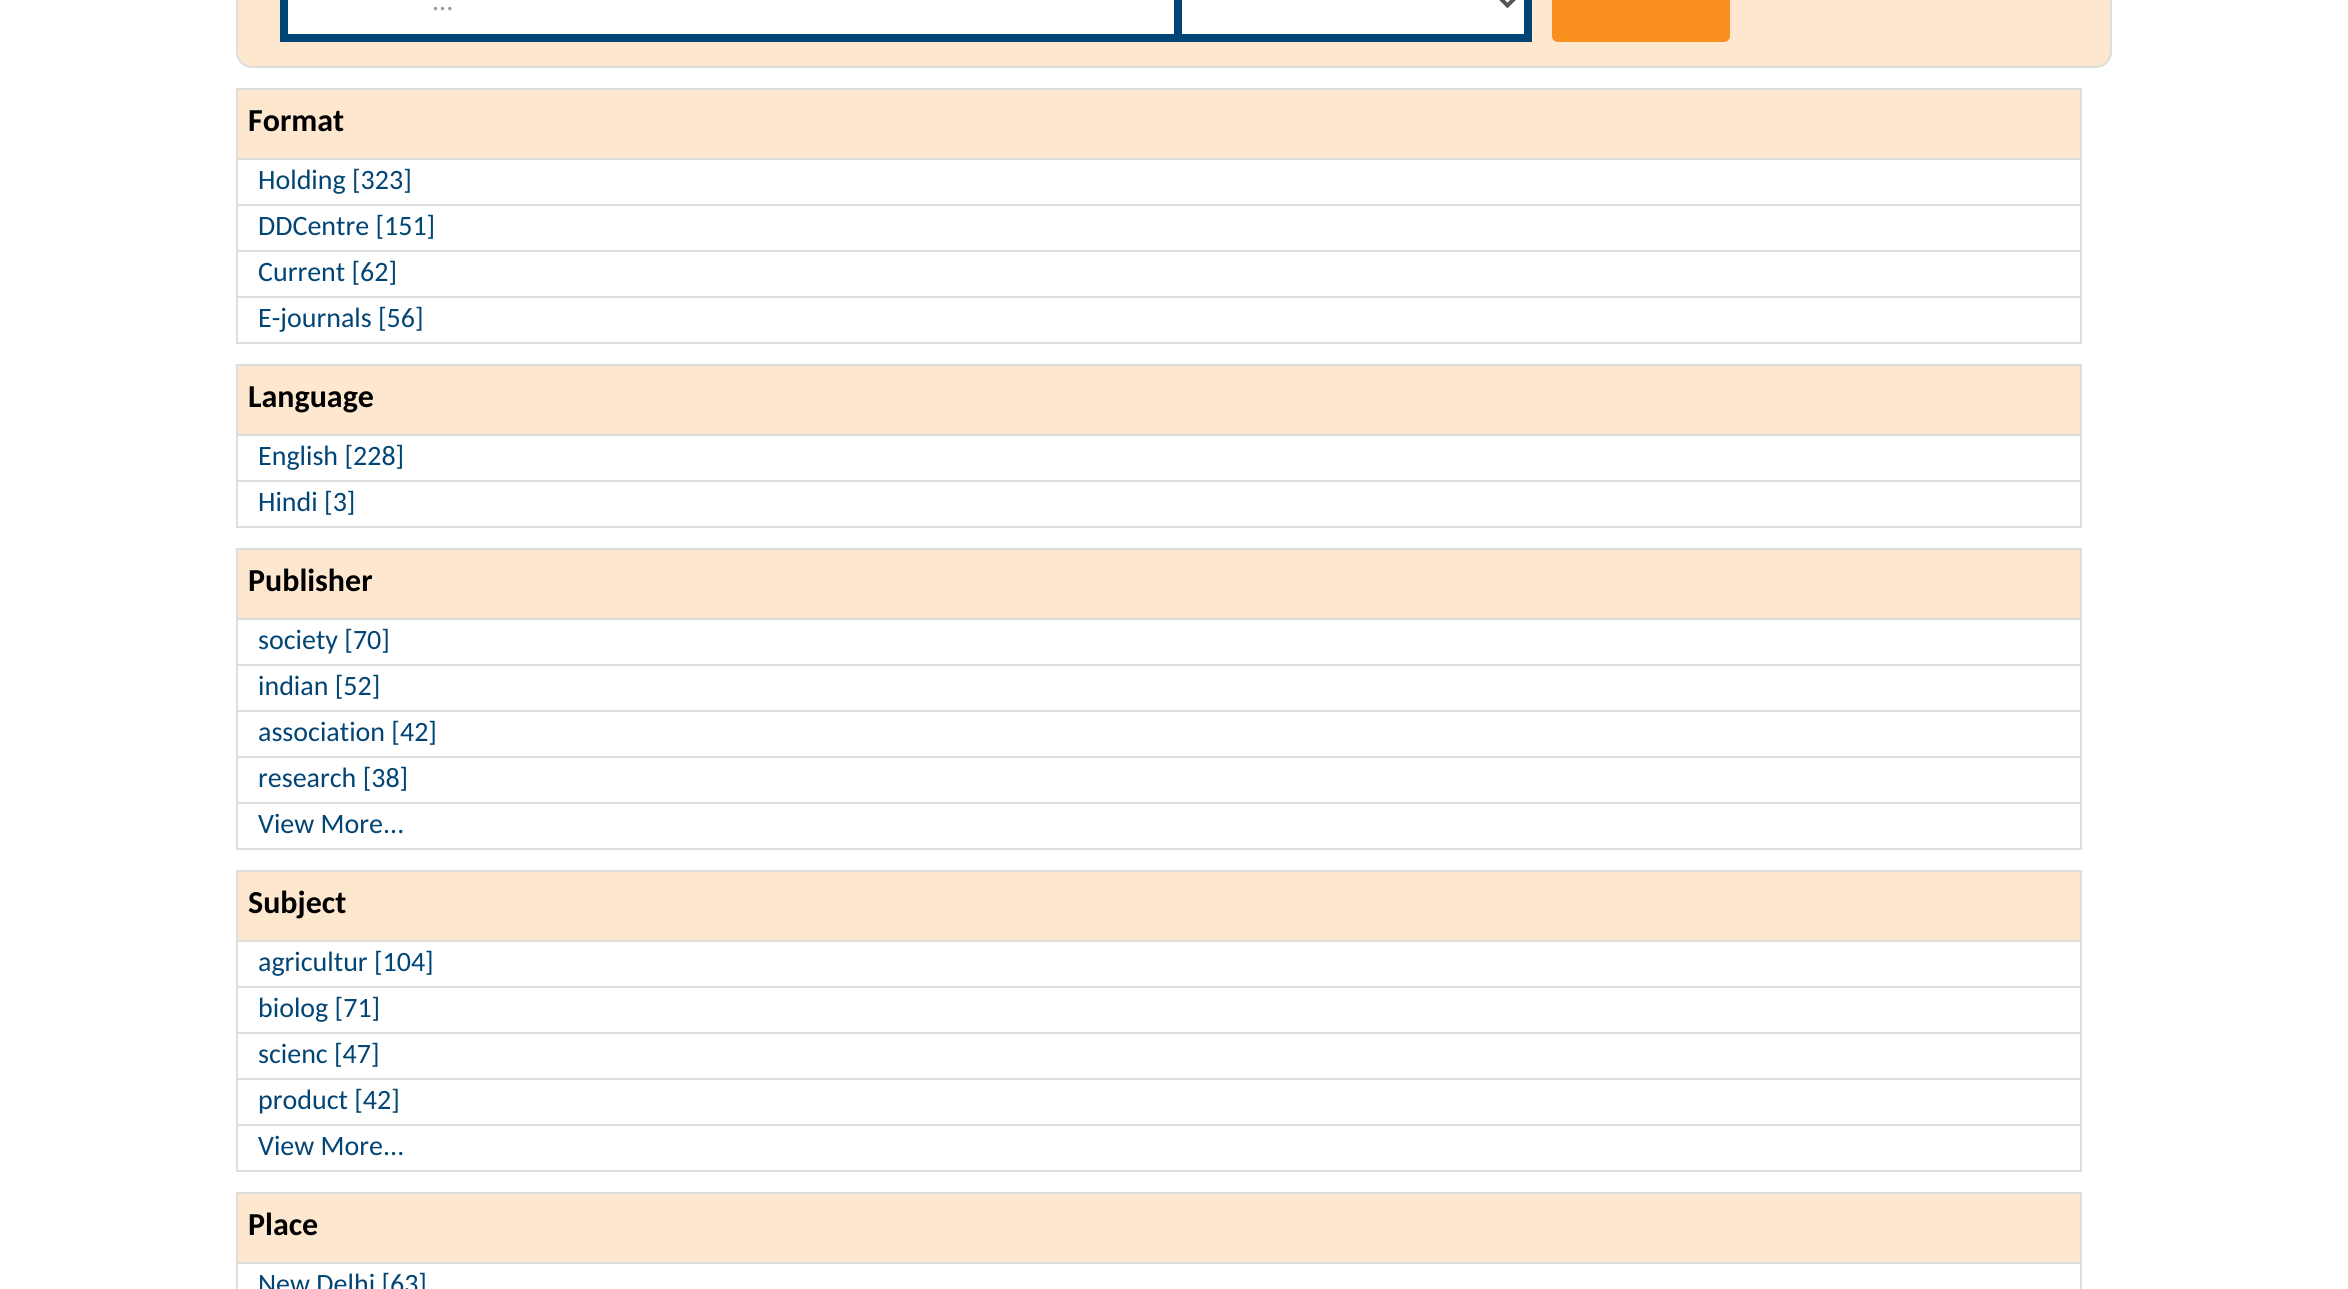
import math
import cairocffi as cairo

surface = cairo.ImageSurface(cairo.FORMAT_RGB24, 2348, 1289)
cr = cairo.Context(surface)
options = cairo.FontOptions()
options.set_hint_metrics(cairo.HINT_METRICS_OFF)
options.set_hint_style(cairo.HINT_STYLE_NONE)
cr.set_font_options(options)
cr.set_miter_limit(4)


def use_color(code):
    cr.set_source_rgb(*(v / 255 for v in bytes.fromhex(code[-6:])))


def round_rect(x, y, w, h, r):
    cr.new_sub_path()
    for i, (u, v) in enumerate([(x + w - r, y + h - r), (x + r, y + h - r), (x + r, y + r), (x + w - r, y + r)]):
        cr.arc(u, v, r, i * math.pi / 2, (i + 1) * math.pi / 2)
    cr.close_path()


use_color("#ffffff")
cr.paint()
use_color("#fde7cf")
round_rect(237, -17, 1874, 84, 15)
cr.fill_preserve()
use_color("#dddddd")
cr.stroke()
use_color("#ffffff")
cr.rectangle(288, 0, 886, 34)
cr.fill()
use_color("#014576")
cr.rectangle(280, 34, 894, 8)
cr.fill()
cr.rectangle(280, 0, 8, 42)
cr.fill()
cr.select_font_face("Carlito")
cr.set_font_size(28)
use_color("#999999")
cr.move_to(432, 10)
cr.show_text("...")
use_color("#ffffff")
cr.rectangle(1178, -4, 350, 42)
cr.fill_preserve()
use_color("#014576")
cr.set_line_width(8)
cr.stroke()
cr.new_path()
cr.move_to(1499.5, -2.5)
cr.line_to(1507.5, 5.5)
cr.line_to(1515.5, -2.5)
use_color("#555555")
cr.set_line_width(4)
cr.stroke()
use_color("#f98f1f")
round_rect(1552, -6, 178, 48, 6)
cr.fill()
use_color("#fde7cf")
cr.rectangle(237, 89, 1844, 70)
cr.fill_preserve()
use_color("#dddddd")
cr.set_line_width(2)
cr.stroke()
cr.select_font_face("Carlito", cairo.FONT_SLANT_NORMAL, cairo.FONT_WEIGHT_BOLD)
cr.set_font_size(32)
use_color("#000000")
cr.move_to(248, 131)
cr.show_text("Format")
cr.rectangle(237, 159, 1844, 46)
use_color("#dddddd")
cr.stroke()
cr.select_font_face("Carlito")
cr.set_font_size(28)
use_color("#014576")
cr.move_to(258, 189)
cr.show_text("Holding [323]")
cr.rectangle(237, 205, 1844, 46)
use_color("#dddddd")
cr.stroke()
use_color("#014576")
cr.move_to(258, 235)
cr.show_text("DDCentre [151]")
cr.rectangle(237, 251, 1844, 46)
use_color("#dddddd")
cr.stroke()
use_color("#014576")
cr.move_to(258, 281)
cr.show_text("Current [62]")
cr.rectangle(237, 297, 1844, 46)
use_color("#dddddd")
cr.stroke()
use_color("#014576")
cr.move_to(258, 327)
cr.show_text("E-journals [56]")
use_color("#fde7cf")
cr.rectangle(237, 365, 1844, 70)
cr.fill_preserve()
use_color("#dddddd")
cr.stroke()
cr.select_font_face("Carlito", cairo.FONT_SLANT_NORMAL, cairo.FONT_WEIGHT_BOLD)
cr.set_font_size(32)
use_color("#000000")
cr.move_to(248, 407)
cr.show_text("Language")
cr.rectangle(237, 435, 1844, 46)
use_color("#dddddd")
cr.stroke()
cr.select_font_face("Carlito")
cr.set_font_size(28)
use_color("#014576")
cr.move_to(258, 465)
cr.show_text("English [228]")
cr.rectangle(237, 481, 1844, 46)
use_color("#dddddd")
cr.stroke()
use_color("#014576")
cr.move_to(258, 511)
cr.show_text("Hindi [3]")
use_color("#fde7cf")
cr.rectangle(237, 549, 1844, 70)
cr.fill_preserve()
use_color("#dddddd")
cr.stroke()
cr.select_font_face("Carlito", cairo.FONT_SLANT_NORMAL, cairo.FONT_WEIGHT_BOLD)
cr.set_font_size(32)
use_color("#000000")
cr.move_to(248, 591)
cr.show_text("Publisher")
cr.rectangle(237, 619, 1844, 46)
use_color("#dddddd")
cr.stroke()
cr.select_font_face("Carlito")
cr.set_font_size(28)
use_color("#014576")
cr.move_to(258, 649)
cr.show_text("society [70]")
cr.rectangle(237, 665, 1844, 46)
use_color("#dddddd")
cr.stroke()
use_color("#014576")
cr.move_to(258, 695)
cr.show_text("indian [52]")
cr.rectangle(237, 711, 1844, 46)
use_color("#dddddd")
cr.stroke()
use_color("#014576")
cr.move_to(258, 741)
cr.show_text("association [42]")
cr.rectangle(237, 757, 1844, 46)
use_color("#dddddd")
cr.stroke()
use_color("#014576")
cr.move_to(258, 787)
cr.show_text("research [38]")
cr.rectangle(237, 803, 1844, 46)
use_color("#dddddd")
cr.stroke()
use_color("#014576")
cr.move_to(258, 833)
cr.show_text("View More...")
use_color("#fde7cf")
cr.rectangle(237, 871, 1844, 70)
cr.fill_preserve()
use_color("#dddddd")
cr.stroke()
cr.select_font_face("Carlito", cairo.FONT_SLANT_NORMAL, cairo.FONT_WEIGHT_BOLD)
cr.set_font_size(32)
use_color("#000000")
cr.move_to(248, 913)
cr.show_text("Subject")
cr.rectangle(237, 941, 1844, 46)
use_color("#dddddd")
cr.stroke()
cr.select_font_face("Carlito")
cr.set_font_size(28)
use_color("#014576")
cr.move_to(258, 971)
cr.show_text("agricultur [104]")
cr.rectangle(237, 987, 1844, 46)
use_color("#dddddd")
cr.stroke()
use_color("#014576")
cr.move_to(258, 1017)
cr.show_text("biolog [71]")
cr.rectangle(237, 1033, 1844, 46)
use_color("#dddddd")
cr.stroke()
use_color("#014576")
cr.move_to(258, 1063)
cr.show_text("scienc [47]")
cr.rectangle(237, 1079, 1844, 46)
use_color("#dddddd")
cr.stroke()
use_color("#014576")
cr.move_to(258, 1109)
cr.show_text("product [42]")
cr.rectangle(237, 1125, 1844, 46)
use_color("#dddddd")
cr.stroke()
use_color("#014576")
cr.move_to(258, 1155)
cr.show_text("View More...")
use_color("#fde7cf")
cr.rectangle(237, 1193, 1844, 70)
cr.fill_preserve()
use_color("#dddddd")
cr.stroke()
cr.select_font_face("Carlito", cairo.FONT_SLANT_NORMAL, cairo.FONT_WEIGHT_BOLD)
cr.set_font_size(32)
use_color("#000000")
cr.move_to(248, 1235)
cr.show_text("Place")
cr.rectangle(237, 1263, 1844, 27)
use_color("#dddddd")
cr.stroke()
cr.select_font_face("Carlito")
cr.set_font_size(28)
use_color("#014576")
cr.move_to(258, 1293)
cr.show_text("New Delhi [63]")
surface.write_to_png("result.png")
